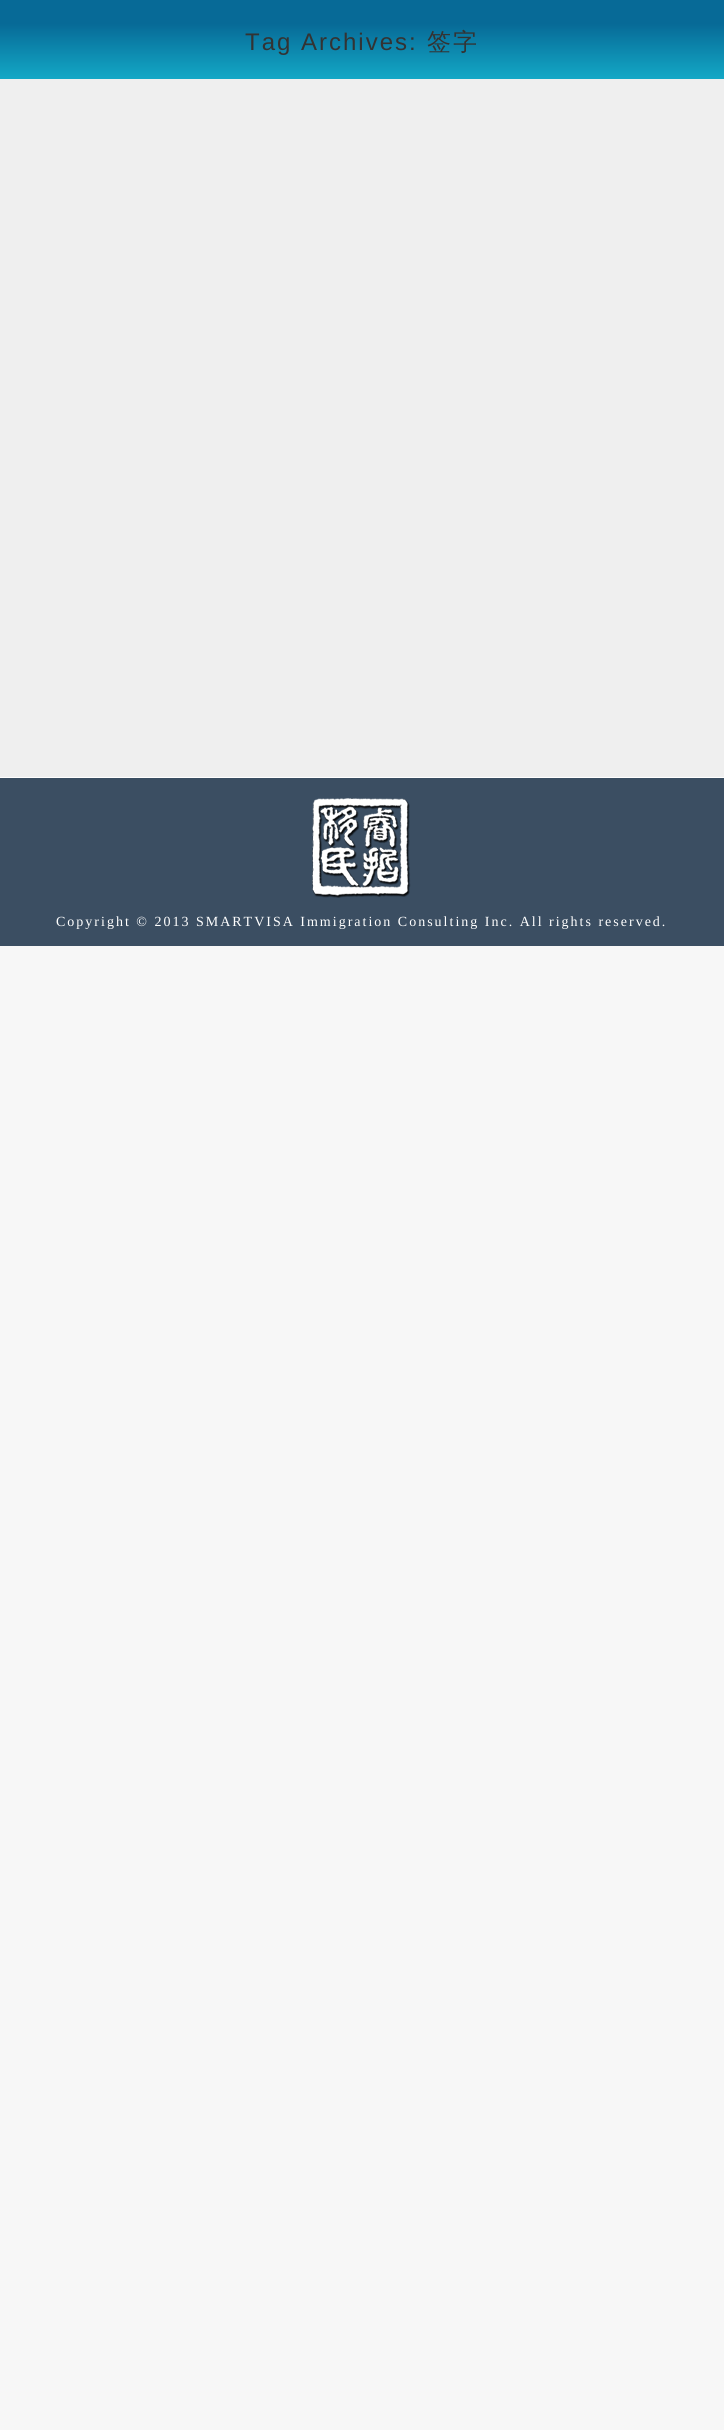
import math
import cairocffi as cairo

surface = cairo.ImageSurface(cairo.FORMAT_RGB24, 724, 2430)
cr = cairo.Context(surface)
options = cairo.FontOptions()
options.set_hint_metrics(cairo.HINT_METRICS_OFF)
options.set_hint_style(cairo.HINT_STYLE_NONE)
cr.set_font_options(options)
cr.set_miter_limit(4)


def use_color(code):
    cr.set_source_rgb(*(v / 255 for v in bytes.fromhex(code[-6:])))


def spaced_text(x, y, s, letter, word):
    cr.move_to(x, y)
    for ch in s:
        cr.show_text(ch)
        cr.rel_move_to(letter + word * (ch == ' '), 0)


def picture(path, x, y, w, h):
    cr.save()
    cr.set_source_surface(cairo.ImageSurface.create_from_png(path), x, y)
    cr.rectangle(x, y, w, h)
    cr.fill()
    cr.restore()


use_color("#f7f7f7")
cr.paint()
use_color("#efefef")
cr.rectangle(0, 79, 724, 698)
cr.fill()
gradient = cairo.LinearGradient(362, 0, 362, 79)
gradient.add_color_stop_rgba(0.3, 0.027, 0.416, 0.592, 1)
gradient.add_color_stop_rgba(1, 0.075, 0.659, 0.776, 1)
cr.set_source(gradient)
cr.rectangle(0, 0, 724, 79)
cr.fill()
cr.select_font_face("Liberation Sans")
cr.set_font_size(24)
use_color("#333333")
spaced_text(245, 50, "Tag Archives:", 2, 0)
cr.select_font_face("WenQuanYi Zen Hei Medium")
spaced_text(427, 50, "签字", 2, 0)
use_color("#3b4e62")
cr.rectangle(0, 778, 724, 168)
cr.fill()
use_color("#ffffff")
cr.rectangle(0, 777, 724, 1)
cr.fill()
picture("img1.png", 312, 798, 99, 100)
cr.select_font_face("Liberation Serif")
cr.set_font_size(14)
spaced_text(56, 926, "Copyright © 2013 SMARTVISA Immigration Consulting Inc. All rights reserved.", 2, 0)
surface.write_to_png("result.png")
